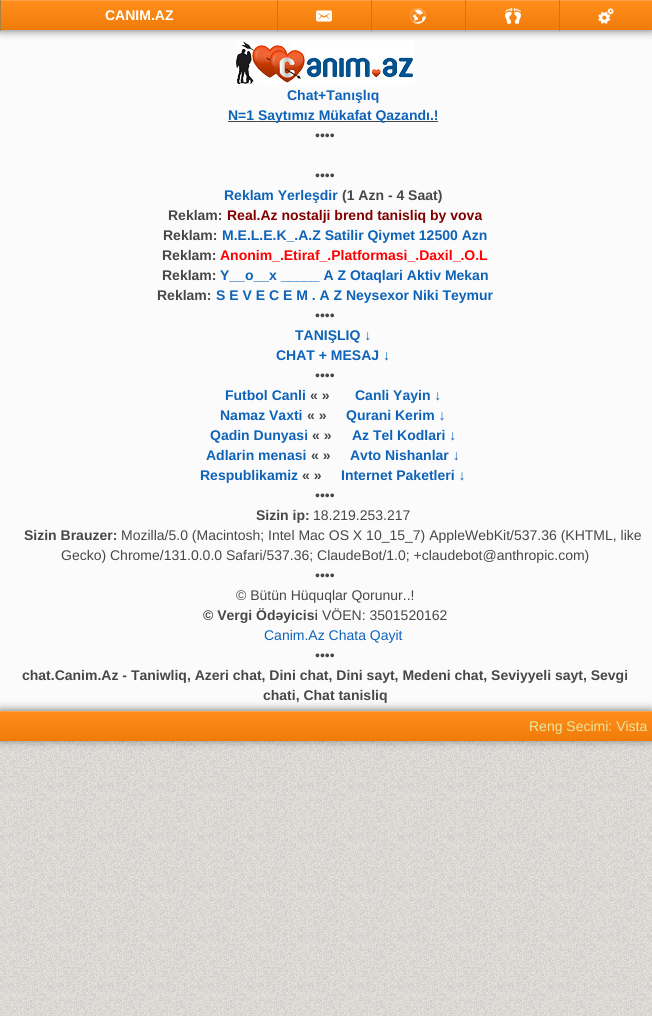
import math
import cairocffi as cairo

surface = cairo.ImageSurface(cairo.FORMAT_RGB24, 652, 1016)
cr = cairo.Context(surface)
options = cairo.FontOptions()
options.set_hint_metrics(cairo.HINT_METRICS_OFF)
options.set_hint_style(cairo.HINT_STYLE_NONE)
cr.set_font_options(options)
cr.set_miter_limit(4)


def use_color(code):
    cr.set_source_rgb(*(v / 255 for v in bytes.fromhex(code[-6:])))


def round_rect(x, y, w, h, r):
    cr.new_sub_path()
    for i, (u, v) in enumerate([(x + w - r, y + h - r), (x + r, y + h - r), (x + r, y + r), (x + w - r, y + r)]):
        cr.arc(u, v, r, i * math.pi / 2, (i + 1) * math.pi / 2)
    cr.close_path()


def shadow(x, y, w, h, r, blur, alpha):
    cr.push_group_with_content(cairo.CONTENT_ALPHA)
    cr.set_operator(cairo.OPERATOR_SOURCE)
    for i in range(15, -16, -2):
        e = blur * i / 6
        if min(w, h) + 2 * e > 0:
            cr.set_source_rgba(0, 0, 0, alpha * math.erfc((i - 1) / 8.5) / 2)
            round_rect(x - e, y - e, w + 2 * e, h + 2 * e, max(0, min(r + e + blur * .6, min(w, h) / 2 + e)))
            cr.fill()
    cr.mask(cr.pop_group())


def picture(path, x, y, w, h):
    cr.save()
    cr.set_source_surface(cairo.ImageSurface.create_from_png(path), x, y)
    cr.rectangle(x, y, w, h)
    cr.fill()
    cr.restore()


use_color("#ffffff")
cr.paint()
picture("img1.png", 0, 741, 652, 275)
use_color("#fbfbfb")
cr.rectangle(0, 30, 652, 681)
cr.fill()
picture("img7.png", 236, 40, 179, 45)
use_color("#000000")
shadow(0, 1, 652, 30, 0, 4.5, 0.5)
picture("img2.png", 1, 0, 651, 30)
use_color("#a5843f")
cr.rectangle(0, 0, 1, 31)
cr.fill()
cr.select_font_face("Liberation Sans", cairo.FONT_SLANT_NORMAL, cairo.FONT_WEIGHT_BOLD)
cr.set_font_size(14)
use_color("#ffffff")
cr.move_to(105, 20)
cr.show_text("CANIM.AZ")
use_color("#a5843f")
cr.rectangle(277, 0, 1, 31)
cr.fill()
picture("img3.png", 316, 10, 16, 12)
cr.rectangle(371, 0, 1, 31)
cr.fill()
picture("img4.png", 410, 8, 16, 16)
cr.rectangle(465, 0, 1, 31)
cr.fill()
picture("img5.png", 505, 8, 16, 16)
cr.rectangle(559, 0, 1, 31)
cr.fill()
picture("img6.png", 598, 8, 16, 16)
use_color("#0e63b8")
cr.move_to(287, 100)
cr.show_text("Chat+Tanışlıq")
use_color("#484747")
cr.rectangle(228, 121, 210, 1)
cr.fill()
use_color("#0e63b8")
cr.move_to(228, 120)
cr.show_text("N=1 Saytımız Mükafat Qazandı.!")
cr.select_font_face("Liberation Sans")
use_color("#484747")
cr.move_to(315, 140)
cr.show_text("••••")
cr.move_to(315, 180)
cr.show_text("••••")
cr.select_font_face("Liberation Sans", cairo.FONT_SLANT_NORMAL, cairo.FONT_WEIGHT_BOLD)
use_color("#0e63b8")
cr.move_to(224, 200)
cr.show_text("Reklam Yerleşdir")
use_color("#484747")
cr.move_to(342, 200)
cr.show_text("(1 Azn - 4 Saat)")
cr.move_to(168, 220)
cr.show_text("Reklam:")
use_color("#800000")
cr.move_to(227, 220)
cr.show_text("Real.Az nostalji brend tanisliq by vova")
use_color("#484747")
cr.move_to(163, 240)
cr.show_text("Reklam:")
use_color("#0e63b8")
cr.move_to(222, 240)
cr.show_text("M.E.L.E.K_.A.Z Satilir Qiymet 12500 Azn")
use_color("#484747")
cr.move_to(162, 260)
cr.show_text("Reklam:")
use_color("#ff0000")
cr.move_to(220, 260)
cr.show_text("Anonim_.Etiraf_.Platformasi_.Daxil_.O.L")
use_color("#484747")
cr.move_to(162, 280)
cr.show_text("Reklam:")
use_color("#0e63b8")
cr.move_to(220, 280)
cr.show_text("Y__o__x _____ A Z Otaqlari Aktiv Mekan")
use_color("#484747")
cr.move_to(157, 300)
cr.show_text("Reklam:")
use_color("#0e63b8")
cr.move_to(216, 300)
cr.show_text("S E V E C E M . A Z Neysexor Niki Teymur")
cr.select_font_face("Liberation Sans")
use_color("#484747")
cr.move_to(315, 320)
cr.show_text("••••")
cr.select_font_face("Liberation Sans", cairo.FONT_SLANT_NORMAL, cairo.FONT_WEIGHT_BOLD)
use_color("#0e63b8")
cr.move_to(295, 340)
cr.show_text("TANIŞLIQ ↓")
cr.move_to(276, 360)
cr.show_text("CHAT + MESAJ ↓")
cr.select_font_face("Liberation Sans")
use_color("#484747")
cr.move_to(315, 380)
cr.show_text("••••")
cr.select_font_face("Liberation Sans", cairo.FONT_SLANT_NORMAL, cairo.FONT_WEIGHT_BOLD)
use_color("#0e63b8")
cr.move_to(225, 400)
cr.show_text("Futbol Canli")
use_color("#484747")
cr.move_to(310, 400)
cr.show_text("« »")
use_color("#0e63b8")
cr.move_to(355, 400)
cr.show_text("Canli Yayin ↓")
cr.move_to(220, 420)
cr.show_text("Namaz Vaxti")
use_color("#484747")
cr.move_to(307, 420)
cr.show_text("« »")
use_color("#0e63b8")
cr.move_to(346, 420)
cr.show_text("Qurani Kerim ↓")
cr.move_to(210, 440)
cr.show_text("Qadin Dunyasi")
use_color("#484747")
cr.move_to(312, 440)
cr.show_text("« »")
use_color("#0e63b8")
cr.move_to(352, 440)
cr.show_text("Az Tel Kodlari ↓")
cr.move_to(206, 460)
cr.show_text("Adlarin menasi")
use_color("#484747")
cr.move_to(311, 460)
cr.show_text("« »")
use_color("#0e63b8")
cr.move_to(350, 460)
cr.show_text("Avto Nishanlar ↓")
cr.move_to(200, 480)
cr.show_text("Respublikamiz")
use_color("#484747")
cr.move_to(302, 480)
cr.show_text("« »")
use_color("#0e63b8")
cr.move_to(341, 480)
cr.show_text("Internet Paketleri ↓")
cr.select_font_face("Liberation Sans")
use_color("#484747")
cr.move_to(315, 500)
cr.show_text("••••")
cr.select_font_face("Liberation Sans", cairo.FONT_SLANT_NORMAL, cairo.FONT_WEIGHT_BOLD)
cr.move_to(256, 520)
cr.show_text("Sizin ip:")
cr.select_font_face("Liberation Sans")
cr.move_to(313, 520)
cr.show_text("18.219.253.217")
cr.select_font_face("Liberation Sans", cairo.FONT_SLANT_NORMAL, cairo.FONT_WEIGHT_BOLD)
cr.move_to(24, 540)
cr.show_text("Sizin Brauzer:")
cr.select_font_face("Liberation Sans")
cr.move_to(121, 540)
cr.show_text("Mozilla/5.0 (Macintosh; Intel Mac OS X 10_15_7) AppleWebKit/537.36 (KHTML, like")
cr.move_to(61, 560)
cr.show_text("Gecko) Chrome/131.0.0.0 Safari/537.36; ClaudeBot/1.0; +claudebot@anthropic.com)")
cr.move_to(315, 580)
cr.show_text("••••")
cr.move_to(236, 600)
cr.show_text("© Bütün Hüquqlar Qorunur..!")
cr.select_font_face("Liberation Sans", cairo.FONT_SLANT_NORMAL, cairo.FONT_WEIGHT_BOLD)
cr.move_to(203, 620)
cr.show_text("© Vergi Ödəyicisi")
cr.select_font_face("Liberation Sans")
cr.move_to(322, 620)
cr.show_text("VÖEN: 3501520162")
use_color("#0e63b8")
cr.move_to(264, 640)
cr.show_text("Canim.Az Chata Qayit")
use_color("#484747")
cr.move_to(315, 660)
cr.show_text("••••")
cr.select_font_face("Liberation Sans", cairo.FONT_SLANT_NORMAL, cairo.FONT_WEIGHT_BOLD)
cr.move_to(22, 680)
cr.show_text("chat.Canim.Az - Taniwliq, Azeri chat, Dini chat, Dini sayt, Medeni chat, Seviyyeli sayt, Sevgi")
cr.move_to(263, 700)
cr.show_text("chati, Chat tanisliq")
use_color("#000000")
shadow(0, 710, 652, 30, 0, 4.5, 0.5)
picture("img8.png", 0, 711, 652, 30)
cr.select_font_face("Liberation Sans")
use_color("#e7e79e")
cr.move_to(529, 731)
cr.show_text("Reng Secimi: Vista")
surface.write_to_png("result.png")
